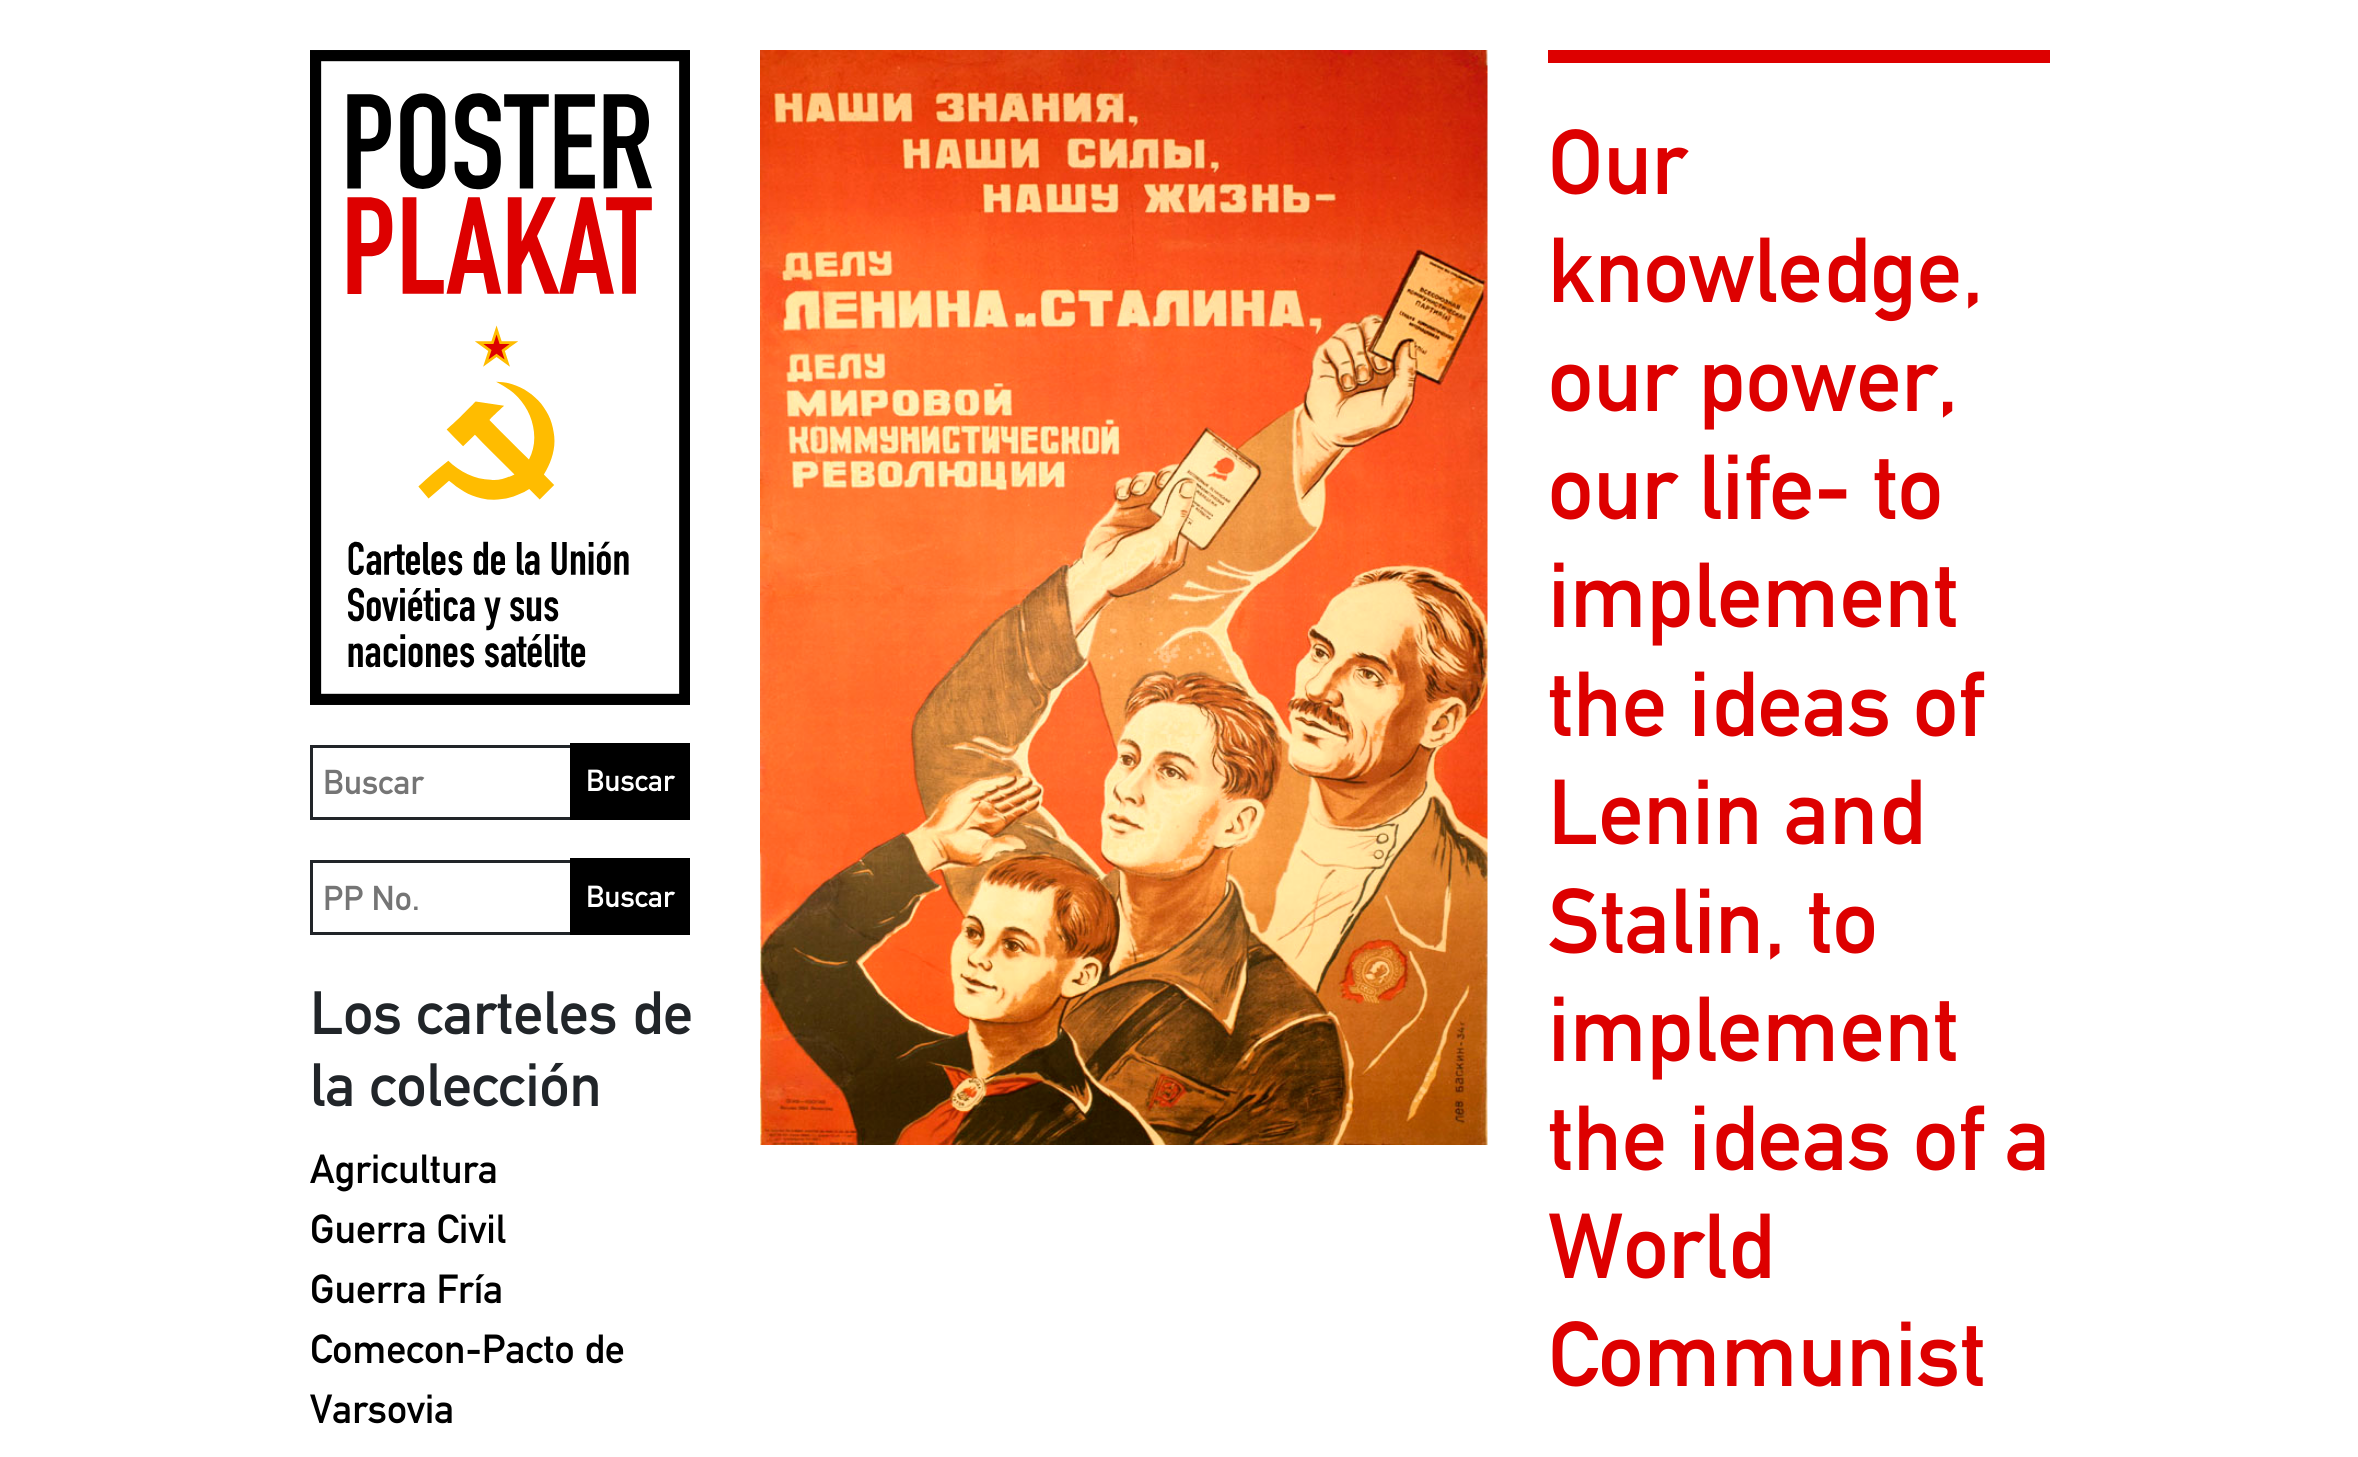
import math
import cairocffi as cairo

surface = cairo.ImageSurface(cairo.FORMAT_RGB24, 2358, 1457)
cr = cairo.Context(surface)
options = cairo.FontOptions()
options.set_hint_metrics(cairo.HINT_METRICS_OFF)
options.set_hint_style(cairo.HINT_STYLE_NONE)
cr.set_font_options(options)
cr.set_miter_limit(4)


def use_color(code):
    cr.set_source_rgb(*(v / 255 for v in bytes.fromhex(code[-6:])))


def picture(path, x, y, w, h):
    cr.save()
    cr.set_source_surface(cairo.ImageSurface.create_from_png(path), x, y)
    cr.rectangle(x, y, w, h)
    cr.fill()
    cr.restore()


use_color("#ffffff")
cr.paint()
picture("img1.png", 310, 50, 380, 655)
cr.rectangle(311.5, 746.5, 377, 72)
use_color("#212529")
cr.set_line_width(3)
cr.stroke()
cr.select_font_face("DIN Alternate", cairo.FONT_SLANT_NORMAL, cairo.FONT_WEIGHT_BOLD)
cr.set_font_size(34)
use_color("#757575")
cr.move_to(323, 794)
cr.show_text("Buscar")
use_color("#000000")
cr.rectangle(570, 743, 120, 77)
cr.fill()
cr.set_font_size(30)
use_color("#ffffff")
cr.move_to(586, 791)
cr.show_text("Buscar")
cr.rectangle(311.5, 861.5, 377, 72)
use_color("#212529")
cr.stroke()
cr.set_font_size(34)
use_color("#757575")
cr.move_to(323, 910)
cr.show_text("PP No.")
use_color("#000000")
cr.rectangle(570, 858, 120, 77)
cr.fill()
cr.set_font_size(30)
use_color("#ffffff")
cr.move_to(586, 907)
cr.show_text("Buscar")
cr.set_font_size(60)
use_color("#212529")
cr.move_to(310, 1034)
cr.show_text("Los carteles de")
cr.move_to(310, 1106)
cr.show_text("la colección")
cr.set_font_size(40)
use_color("#000000")
cr.move_to(310, 1183)
cr.show_text("Agricultura")
cr.move_to(310, 1243)
cr.show_text("Guerra Civil")
cr.move_to(310, 1303)
cr.show_text("Guerra Fría")
cr.move_to(310, 1363)
cr.show_text("Comecon-Pacto de")
cr.move_to(310, 1423)
cr.show_text("Varsovia")
picture("img2.png", 760, 50, 728, 1095)
use_color("#dd0000")
cr.rectangle(1548, 50, 502, 13)
cr.fill()
cr.set_font_size(90.5)
cr.move_to(1548, 194)
cr.show_text("Our")
cr.move_to(1548, 302)
cr.show_text("knowledge,")
cr.move_to(1548, 411)
cr.show_text("our power,")
cr.move_to(1548, 519)
cr.show_text("our life- to")
cr.move_to(1548, 627)
cr.show_text("implement")
cr.move_to(1548, 736)
cr.show_text("the ideas of")
cr.move_to(1548, 844)
cr.show_text("Lenin and")
cr.move_to(1548, 953)
cr.show_text("Stalin, to")
cr.move_to(1548, 1061)
cr.show_text("implement")
cr.move_to(1548, 1170)
cr.show_text("the ideas of a")
cr.move_to(1548, 1278)
cr.show_text("World")
cr.move_to(1548, 1386)
cr.show_text("Communist")
surface.write_to_png("result.png")
